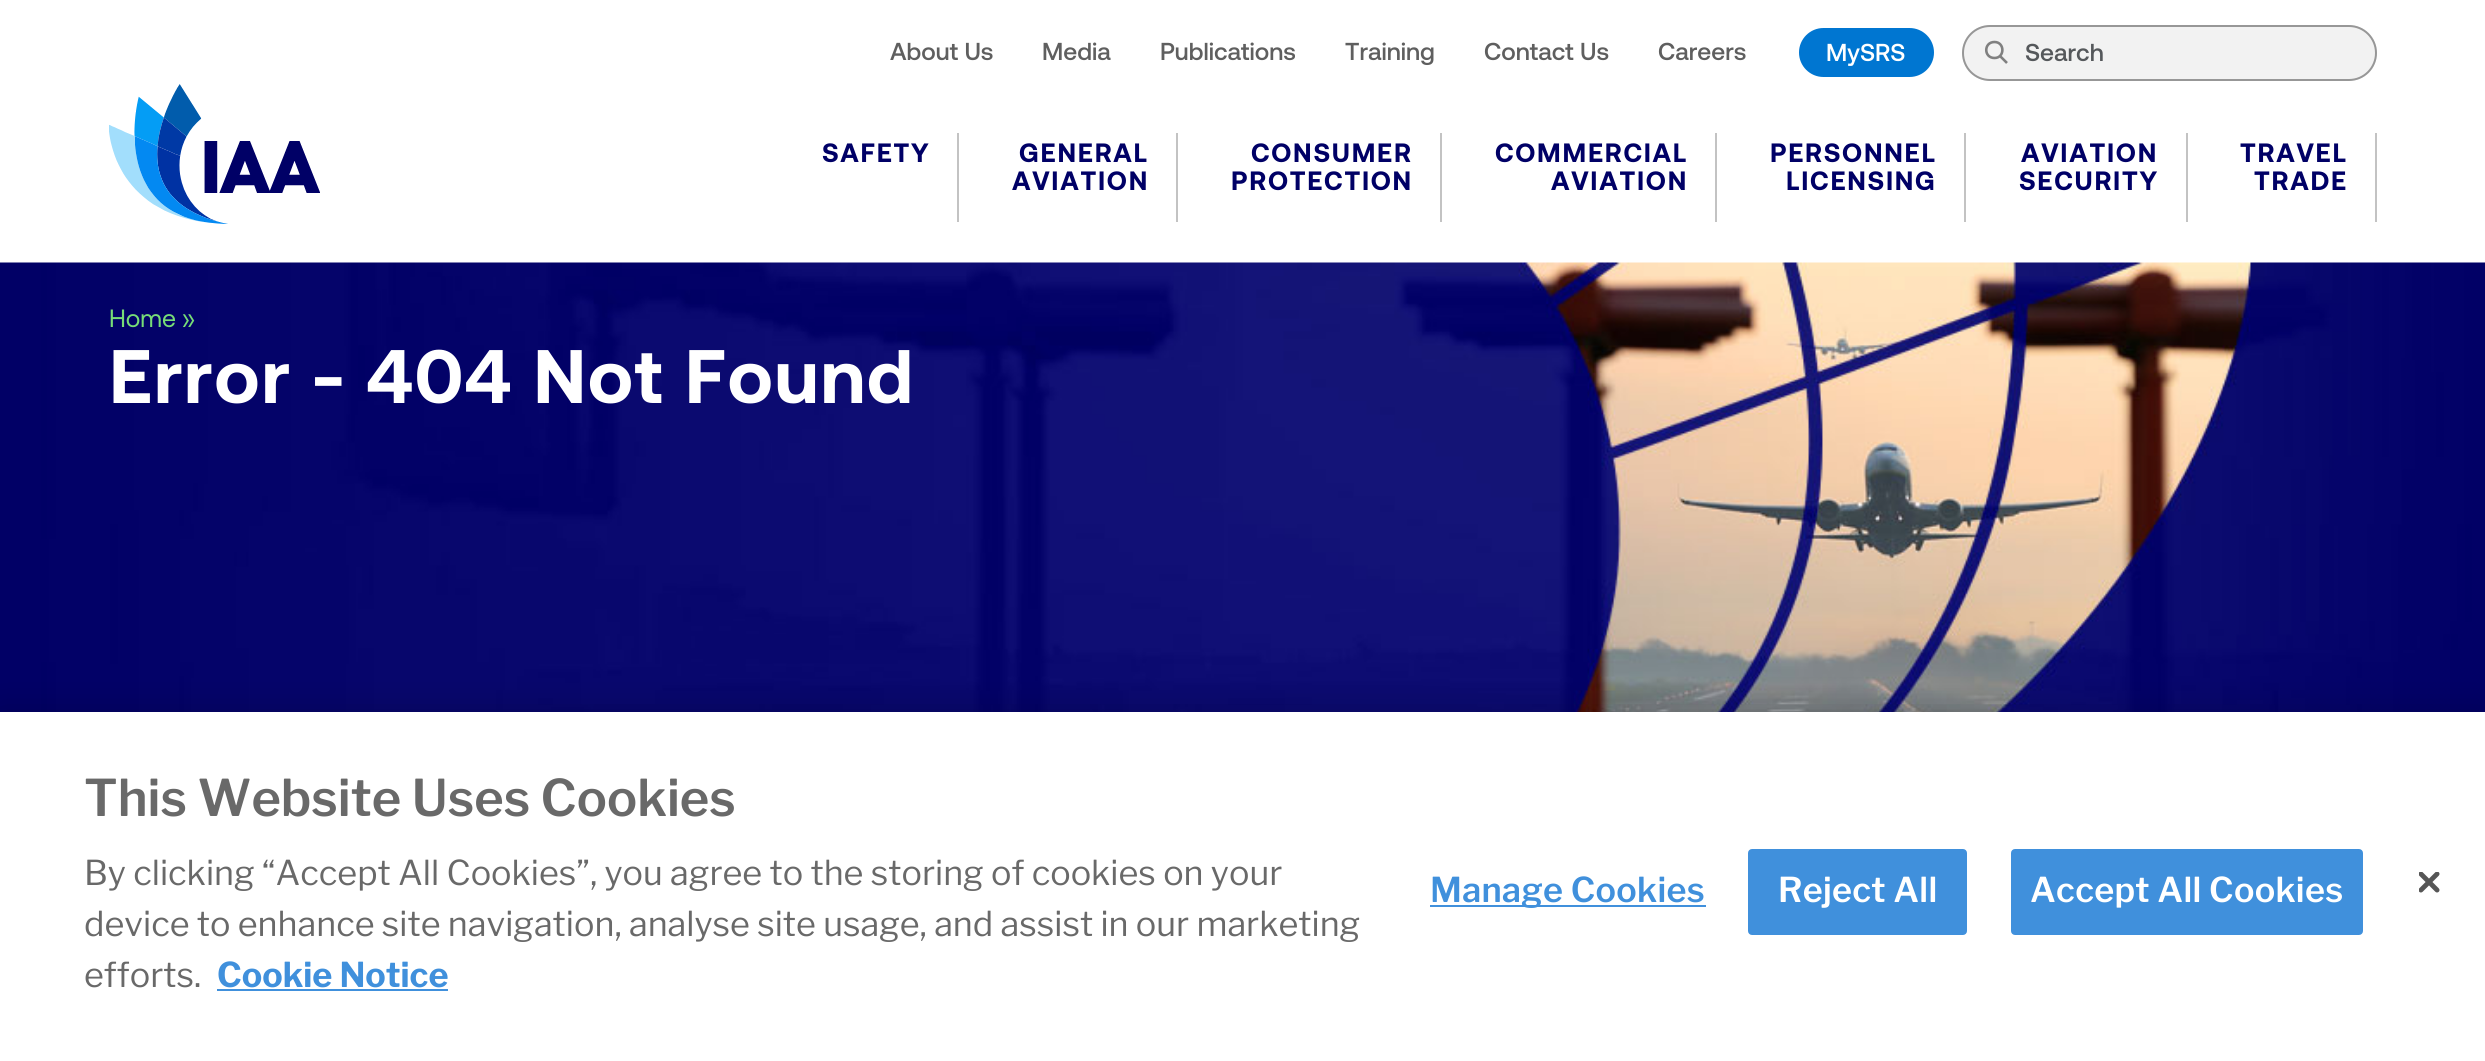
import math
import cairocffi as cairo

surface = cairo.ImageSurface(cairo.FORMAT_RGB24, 2485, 1061)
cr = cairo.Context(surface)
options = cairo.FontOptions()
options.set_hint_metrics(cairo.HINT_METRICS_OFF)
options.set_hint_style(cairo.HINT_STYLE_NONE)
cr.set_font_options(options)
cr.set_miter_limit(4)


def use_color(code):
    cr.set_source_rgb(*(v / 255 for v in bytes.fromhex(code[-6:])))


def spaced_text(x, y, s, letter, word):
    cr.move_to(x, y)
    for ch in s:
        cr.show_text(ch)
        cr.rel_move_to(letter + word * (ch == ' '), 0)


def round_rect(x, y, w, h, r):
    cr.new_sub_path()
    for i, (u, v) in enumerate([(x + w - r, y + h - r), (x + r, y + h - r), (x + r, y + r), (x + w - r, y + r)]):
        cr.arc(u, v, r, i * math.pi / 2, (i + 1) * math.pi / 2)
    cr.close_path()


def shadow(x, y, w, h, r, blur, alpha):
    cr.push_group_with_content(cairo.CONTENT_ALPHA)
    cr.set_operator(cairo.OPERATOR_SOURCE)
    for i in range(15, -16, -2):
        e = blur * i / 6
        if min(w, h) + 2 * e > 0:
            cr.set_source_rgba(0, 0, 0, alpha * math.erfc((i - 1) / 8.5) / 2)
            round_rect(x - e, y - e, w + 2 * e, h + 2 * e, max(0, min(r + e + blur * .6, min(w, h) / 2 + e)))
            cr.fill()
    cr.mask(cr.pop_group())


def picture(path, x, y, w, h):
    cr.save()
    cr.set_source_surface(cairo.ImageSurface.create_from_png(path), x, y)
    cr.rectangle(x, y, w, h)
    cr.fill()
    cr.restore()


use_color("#ffffff")
cr.paint()
cr.select_font_face("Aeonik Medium")
cr.set_font_size(24.5)
use_color("#5f5f5f")
cr.move_to(890, 60)
cr.show_text("About Us")
cr.move_to(1042, 60)
cr.show_text("Media")
cr.move_to(1160, 60)
cr.show_text("Publications")
cr.move_to(1345, 60)
cr.show_text("Training")
cr.move_to(1484, 60)
cr.show_text("Contact Us")
cr.move_to(1658, 60)
cr.show_text("Careers")
use_color("#0076d1")
round_rect(1799, 28, 135, 49, 24.5)
cr.fill()
use_color("#ffffff")
cr.move_to(1826, 61)
cr.show_text("MySRS")
use_color("#f2f2f2")
round_rect(1962, 25, 415, 56, 28)
cr.fill()
cr.new_path()
cr.move_to(1994.5, 42)
cr.curve_to(2005, 42, 2005, 58, 1994.5, 58)
cr.curve_to(1983.5, 58, 1983.5, 42, 1994.5, 42)
cr.close_path()
cr.move_to(2007, 63)
cr.line_to(2000, 56)
use_color("#808080")
cr.set_line_width(2.6)
cr.stroke()
round_rect(1963, 26, 413, 54, 27)
use_color("#979797")
cr.set_line_width(2)
cr.stroke()
use_color("#55585b")
cr.move_to(2025, 61)
cr.show_text("Search")
picture("img1.png", 109, 84, 211, 140)
use_color("#c3c3c3")
cr.rectangle(957, 133, 2, 89)
cr.fill()
cr.select_font_face("Aeonik", cairo.FONT_SLANT_NORMAL, cairo.FONT_WEIGHT_BOLD)
cr.set_font_size(26.5)
use_color("#000066")
spaced_text(822, 162, "SAFETY", 1.75, 0)
use_color("#c3c3c3")
cr.rectangle(1176, 133, 2, 89)
cr.fill()
use_color("#000066")
spaced_text(1019, 162, "GENERAL", 1.75, 0)
spaced_text(1012, 190, "AVIATION", 1.75, 0)
use_color("#c3c3c3")
cr.rectangle(1440, 133, 2, 89)
cr.fill()
use_color("#000066")
spaced_text(1251, 162, "CONSUMER", 1.75, 0)
spaced_text(1231, 190, "PROTECTION", 1.75, 0)
use_color("#c3c3c3")
cr.rectangle(1715, 133, 2, 89)
cr.fill()
use_color("#000066")
spaced_text(1495, 162, "COMMERCIAL", 1.75, 0)
spaced_text(1551, 190, "AVIATION", 1.75, 0)
use_color("#c3c3c3")
cr.rectangle(1964, 133, 2, 89)
cr.fill()
use_color("#000066")
spaced_text(1770, 162, "PERSONNEL", 1.75, 0)
spaced_text(1786, 190, "LICENSING", 1.75, 0)
use_color("#c3c3c3")
cr.rectangle(2186, 133, 2, 89)
cr.fill()
use_color("#000066")
spaced_text(2021, 162, "AVIATION", 1.75, 0)
spaced_text(2019, 190, "SECURITY", 1.75, 0)
use_color("#c3c3c3")
cr.rectangle(2375, 133, 2, 89)
cr.fill()
use_color("#000066")
spaced_text(2240, 162, "TRAVEL", 1.75, 0)
spaced_text(2254, 190, "TRADE", 1.75, 0)
picture("img2.png", 0, 262, 2485, 450)
cr.select_font_face("Aeonik")
cr.set_font_size(25)
use_color("#77dd77")
cr.move_to(109, 327)
cr.show_text("Home")
cr.move_to(182, 327)
cr.show_text("»")
cr.select_font_face("Aeonik", cairo.FONT_SLANT_NORMAL, cairo.FONT_WEIGHT_BOLD)
cr.set_font_size(75.6)
use_color("#ffffff")
spaced_text(109, 403, "Error - 404 Not Found", 1.75, 0)
use_color("#000000")
shadow(0, 712, 2485, 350, 0, 16, 0.2)
use_color("#ffffff")
cr.rectangle(0, 712, 2485, 349)
cr.fill()
cr.select_font_face("Libre Franklin SemiBold")
cr.set_font_size(50.4)
use_color("#696969")
cr.move_to(84, 816)
cr.show_text("This Website Uses Cookies")
cr.select_font_face("Libre Franklin")
cr.set_font_size(34.15)
cr.move_to(84, 885)
cr.show_text("By clicking “Accept All Cookies”, you agree to the storing of cookies on your")
cr.move_to(84, 936)
cr.show_text("device to enhance site navigation, analyse site usage, and assist in our marketing")
cr.move_to(84, 987)
cr.show_text("efforts.")
cr.select_font_face("Libre Franklin", cairo.FONT_SLANT_NORMAL, cairo.FONT_WEIGHT_BOLD)
use_color("#4090dc")
cr.move_to(217, 987)
cr.show_text("Cookie Notice")
cr.rectangle(217, 989, 231, 2)
cr.fill()
cr.rectangle(1430, 905, 276, 2)
cr.fill()
cr.select_font_face("Libre Franklin SemiBold")
spaced_text(1430, 902, "Manage Cookies", 0.3, 0)
round_rect(1749, 850, 217, 84, 3)
cr.fill_preserve()
cr.stroke()
use_color("#ffffff")
spaced_text(1778, 902, "Reject All", 0.3, 0)
use_color("#4090dc")
round_rect(2012, 850, 350, 84, 3)
cr.fill_preserve()
cr.stroke()
use_color("#ffffff")
spaced_text(2030, 902, "Accept All Cookies", 0.3, 0)
picture("img3.png", 2419, 872, 21, 21)
surface.write_to_png("result.png")
